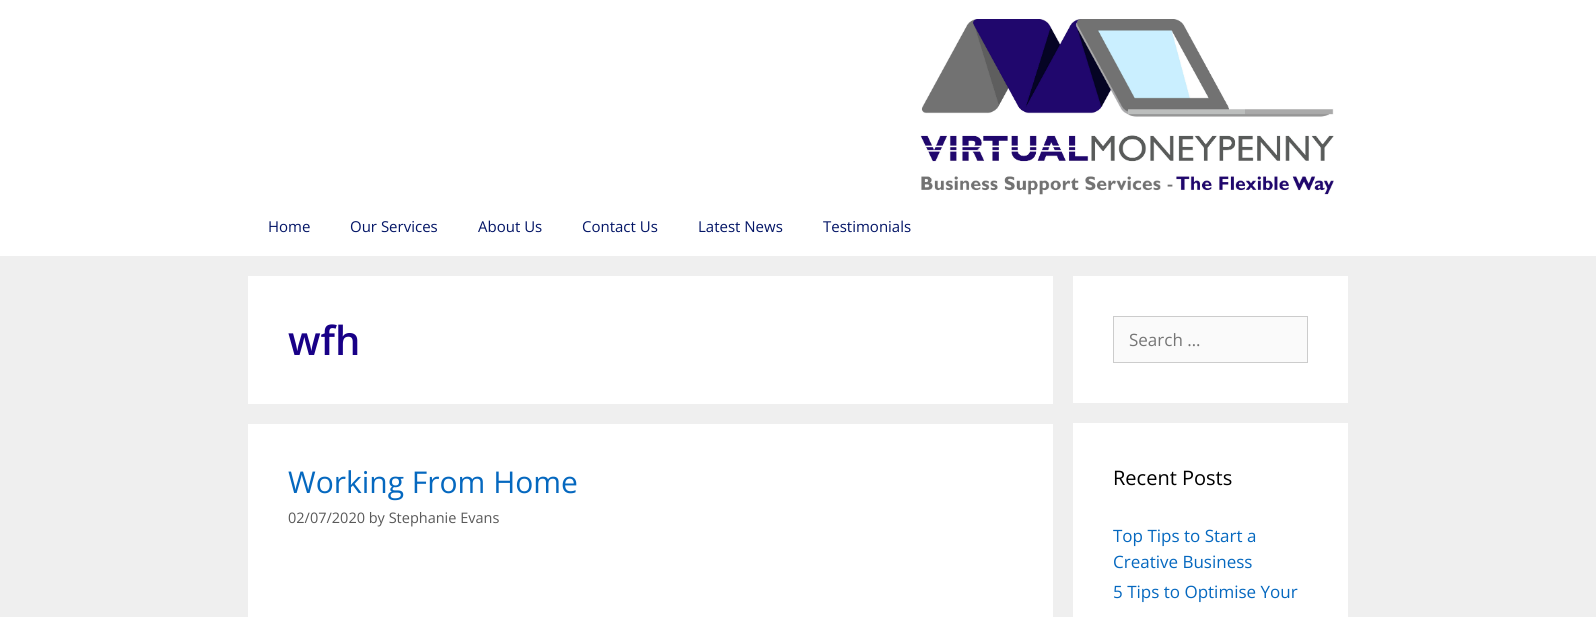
import math
import cairocffi as cairo

surface = cairo.ImageSurface(cairo.FORMAT_RGB24, 1596, 617)
cr = cairo.Context(surface)
options = cairo.FontOptions()
options.set_hint_metrics(cairo.HINT_METRICS_OFF)
options.set_hint_style(cairo.HINT_STYLE_NONE)
cr.set_font_options(options)
cr.set_miter_limit(4)


def use_color(code):
    cr.set_source_rgb(*(v / 255 for v in bytes.fromhex(code[-6:])))


def picture(path, x, y, w, h):
    cr.save()
    cr.set_source_surface(cairo.ImageSurface.create_from_png(path), x, y)
    cr.rectangle(x, y, w, h)
    cr.fill()
    cr.restore()


use_color("#efefef")
cr.paint()
use_color("#ffffff")
cr.rectangle(0, 0, 1596, 256)
cr.fill()
picture("img1.png", 920, 19, 414, 176)
cr.select_font_face("Open Sans")
cr.set_font_size(15)
use_color("#031566")
cr.move_to(268, 232)
cr.show_text("Home")
cr.move_to(350, 232)
cr.show_text("Our Services")
cr.move_to(478, 232)
cr.show_text("About Us")
cr.move_to(582, 232)
cr.show_text("Contact Us")
cr.move_to(698, 232)
cr.show_text("Latest News")
cr.move_to(823, 232)
cr.show_text("Testimonials")
use_color("#ffffff")
cr.rectangle(248, 276, 805, 128)
cr.fill()
cr.select_font_face("Open Sans SemiBold")
cr.set_font_size(40)
use_color("#180087")
cr.move_to(288, 355)
cr.show_text("wfh")
use_color("#ffffff")
cr.rectangle(248, 424, 805, 193)
cr.fill()
cr.select_font_face("Open Sans")
cr.set_font_size(30)
use_color("#0568bf")
cr.move_to(288, 493)
cr.show_text("Working From Home")
cr.set_font_size(14.5)
use_color("#595959")
cr.move_to(288, 523)
cr.show_text("02/07/2020 by Stephanie Evans")
use_color("#ffffff")
cr.rectangle(1073, 276, 275, 127)
cr.fill()
use_color("#fafafa")
cr.rectangle(1113.5, 316.5, 194, 46)
cr.fill_preserve()
use_color("#cccccc")
cr.set_line_width(1)
cr.stroke()
cr.set_font_size(17)
use_color("#757575")
cr.move_to(1129, 346)
cr.show_text("Search …")
use_color("#ffffff")
cr.rectangle(1073, 423, 275, 194)
cr.fill()
cr.set_font_size(20)
use_color("#000000")
cr.move_to(1113, 485)
cr.show_text("Recent Posts")
cr.set_font_size(17)
use_color("#0568bf")
cr.move_to(1113, 542)
cr.show_text("Top Tips to Start a")
cr.move_to(1113, 568)
cr.show_text("Creative Business")
cr.move_to(1113, 598)
cr.show_text("5 Tips to Optimise Your")
surface.write_to_png("result.png")
